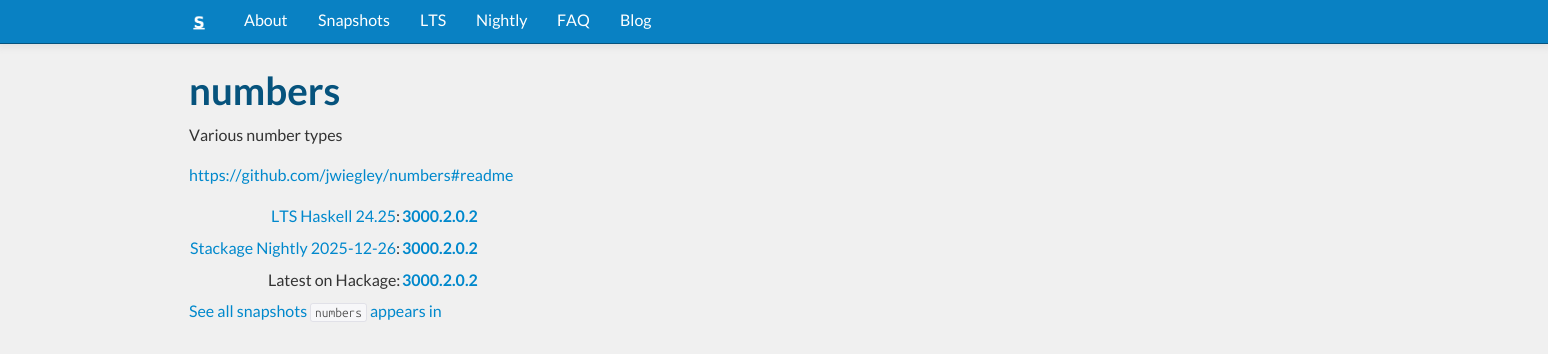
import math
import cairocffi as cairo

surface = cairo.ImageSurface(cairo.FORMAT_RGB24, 1548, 354)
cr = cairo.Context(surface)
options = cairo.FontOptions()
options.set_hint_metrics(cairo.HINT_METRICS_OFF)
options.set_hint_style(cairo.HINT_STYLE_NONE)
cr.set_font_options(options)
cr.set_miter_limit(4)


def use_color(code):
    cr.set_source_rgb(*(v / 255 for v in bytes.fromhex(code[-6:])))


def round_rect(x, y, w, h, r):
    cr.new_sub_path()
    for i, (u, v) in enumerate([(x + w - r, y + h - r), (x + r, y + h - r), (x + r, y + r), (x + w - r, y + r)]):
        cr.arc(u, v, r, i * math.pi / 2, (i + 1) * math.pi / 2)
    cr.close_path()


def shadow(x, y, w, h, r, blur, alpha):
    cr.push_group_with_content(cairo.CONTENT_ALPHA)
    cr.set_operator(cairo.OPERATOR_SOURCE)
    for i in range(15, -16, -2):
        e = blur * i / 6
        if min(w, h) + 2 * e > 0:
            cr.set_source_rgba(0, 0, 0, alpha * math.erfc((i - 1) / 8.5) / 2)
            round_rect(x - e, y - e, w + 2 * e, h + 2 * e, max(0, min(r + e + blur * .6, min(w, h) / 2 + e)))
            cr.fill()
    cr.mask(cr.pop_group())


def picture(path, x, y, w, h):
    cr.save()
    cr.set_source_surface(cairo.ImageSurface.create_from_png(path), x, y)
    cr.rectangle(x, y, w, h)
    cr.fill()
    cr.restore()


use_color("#f0f0f0")
cr.paint()
use_color("#000000")
shadow(0, 1, 1548, 44, 0, 5, 0.1)
use_color("#0981c3")
cr.rectangle(0, 0, 1548, 43)
cr.fill()
use_color("#06537d")
cr.rectangle(0, 43, 1548, 1)
cr.fill()
picture("img1.png", 193, 16, 12, 14)
cr.select_font_face("Lato")
cr.set_font_size(16)
use_color("#ffffff")
cr.move_to(244, 26)
cr.show_text("About")
cr.move_to(318, 26)
cr.show_text("Snapshots")
cr.move_to(420, 26)
cr.show_text("LTS")
cr.move_to(476, 26)
cr.show_text("Nightly")
cr.move_to(557, 26)
cr.show_text("FAQ")
cr.move_to(620, 26)
cr.show_text("Blog")
cr.select_font_face("Lato", cairo.FONT_SLANT_NORMAL, cairo.FONT_WEIGHT_BOLD)
cr.set_font_size(38.5)
use_color("#06537d")
cr.move_to(189, 105)
cr.show_text("numbers")
cr.select_font_face("Lato")
cr.set_font_size(16)
use_color("#333333")
cr.move_to(189, 141)
cr.show_text("Various number types")
use_color("#0088cc")
cr.move_to(189, 181)
cr.show_text("https://github.com/jwiegley/numbers#readme")
cr.move_to(271, 222)
cr.show_text("LTS Haskell 24.25")
use_color("#333333")
cr.move_to(396, 222)
cr.show_text(":")
cr.select_font_face("Lato", cairo.FONT_SLANT_NORMAL, cairo.FONT_WEIGHT_BOLD)
use_color("#0088cc")
cr.move_to(402, 222)
cr.show_text("3000.2.0.2")
cr.select_font_face("Lato")
cr.move_to(190, 254)
cr.show_text("Stackage Nightly 2025-12-26")
use_color("#333333")
cr.move_to(396, 254)
cr.show_text(":")
cr.select_font_face("Lato", cairo.FONT_SLANT_NORMAL, cairo.FONT_WEIGHT_BOLD)
use_color("#0088cc")
cr.move_to(402, 254)
cr.show_text("3000.2.0.2")
cr.select_font_face("Lato")
use_color("#333333")
cr.move_to(268, 286)
cr.show_text("Latest on Hackage:")
cr.select_font_face("Lato", cairo.FONT_SLANT_NORMAL, cairo.FONT_WEIGHT_BOLD)
use_color("#0088cc")
cr.move_to(402, 286)
cr.show_text("3000.2.0.2")
cr.select_font_face("Lato")
cr.move_to(189, 317)
cr.show_text("See all snapshots")
use_color("#f7f7f9")
round_rect(310.5, 303.5, 56, 18, 2.5)
cr.fill_preserve()
use_color("#e1e1e8")
cr.set_line_width(1)
cr.stroke()
cr.select_font_face("Ubuntu Mono")
cr.set_font_size(12)
use_color("#555555")
cr.move_to(315, 317)
cr.show_text("numbers")
cr.select_font_face("Lato")
cr.set_font_size(16)
use_color("#0088cc")
cr.move_to(370, 317)
cr.show_text("appears in")
surface.write_to_png("result.png")
